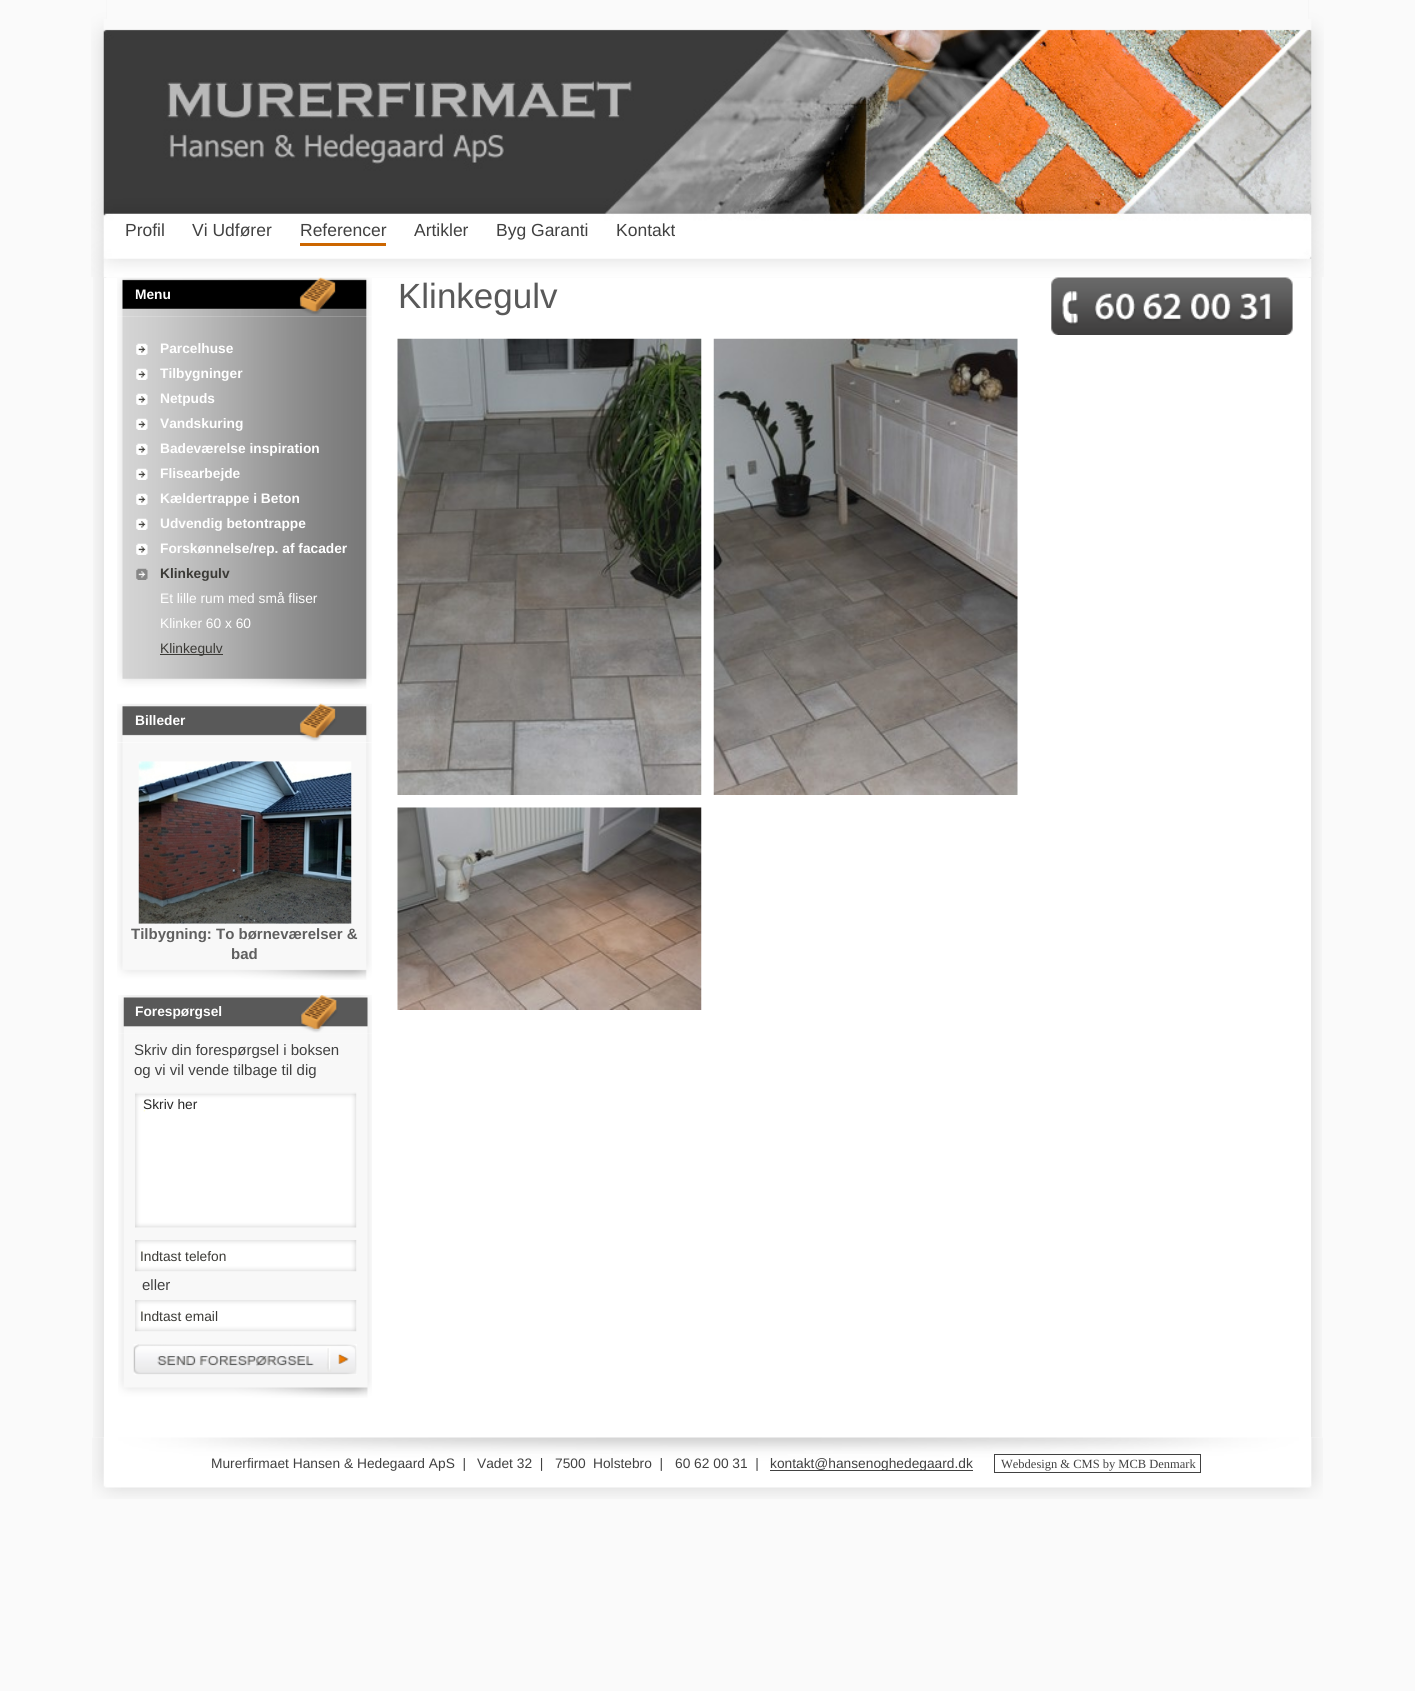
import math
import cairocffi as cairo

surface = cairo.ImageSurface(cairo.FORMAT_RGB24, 1415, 1691)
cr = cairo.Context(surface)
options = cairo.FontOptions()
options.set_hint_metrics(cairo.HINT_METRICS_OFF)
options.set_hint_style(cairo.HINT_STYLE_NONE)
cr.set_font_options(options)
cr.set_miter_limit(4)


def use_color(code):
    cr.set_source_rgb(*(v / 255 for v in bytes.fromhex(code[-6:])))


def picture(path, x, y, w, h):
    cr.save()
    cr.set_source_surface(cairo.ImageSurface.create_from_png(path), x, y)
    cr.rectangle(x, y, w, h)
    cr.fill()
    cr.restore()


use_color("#fafafa")
cr.paint()
picture("img1.png", 93, 0, 1229, 1438)
picture("img2.png", 91, 0, 1233, 277)
picture("img3.png", 103, 19, 1209, 259)
cr.select_font_face("Liberation Sans")
cr.set_font_size(17.5)
use_color("#414141")
cr.move_to(125, 236)
cr.show_text("Profil")
cr.move_to(192, 236)
cr.show_text("Vi Udfører")
cr.move_to(300, 236)
cr.show_text("Referencer")
use_color("#cc6600")
cr.rectangle(300, 243, 86, 3)
cr.fill()
use_color("#414141")
cr.move_to(414, 236)
cr.show_text("Artikler")
cr.move_to(496, 236)
cr.show_text("Byg Garanti")
cr.move_to(616, 236)
cr.show_text("Kontakt")
use_color("#ffffff")
cr.rectangle(104, 278, 1207, 1160)
cr.fill()
picture("img4.png", 117, 277, 255, 40)
cr.select_font_face("Liberation Sans", cairo.FONT_SLANT_NORMAL, cairo.FONT_WEIGHT_BOLD)
cr.set_font_size(13.75)
cr.move_to(135, 299)
cr.show_text("Menu")
picture("img5.png", 117, 316, 255, 373)
picture("img6.png", 136, 343, 12, 12)
cr.move_to(160, 353)
cr.show_text("Parcelhuse")
picture("img6.png", 136, 368, 12, 12)
cr.move_to(160, 378)
cr.show_text("Tilbygninger")
picture("img6.png", 136, 393, 12, 12)
cr.move_to(160, 403)
cr.show_text("Netpuds")
picture("img6.png", 136, 418, 12, 12)
cr.move_to(160, 428)
cr.show_text("Vandskuring")
picture("img6.png", 136, 443, 12, 12)
cr.move_to(160, 453)
cr.show_text("Badeværelse inspiration")
picture("img6.png", 136, 468, 12, 12)
cr.move_to(160, 478)
cr.show_text("Flisearbejde")
picture("img6.png", 136, 493, 12, 12)
cr.move_to(160, 503)
cr.show_text("Kældertrappe i Beton")
picture("img6.png", 136, 518, 12, 12)
cr.move_to(160, 528)
cr.show_text("Udvendig betontrappe")
picture("img6.png", 136, 543, 12, 12)
cr.move_to(160, 553)
cr.show_text("Forskønnelse/rep. af facader")
picture("img7.png", 136, 568, 12, 12)
use_color("#3b3a36")
cr.move_to(160, 578)
cr.show_text("Klinkegulv")
cr.select_font_face("Liberation Sans")
use_color("#ffffff")
cr.move_to(160, 603)
cr.show_text("Et lille rum med små fliser")
cr.move_to(160, 628)
cr.show_text("Klinker 60 x 60")
use_color("#3b3a36")
cr.rectangle(160, 654, 63, 1)
cr.fill()
cr.move_to(160, 653)
cr.show_text("Klinkegulv")
picture("img8.png", 117, 703, 255, 40)
cr.select_font_face("Liberation Sans", cairo.FONT_SLANT_NORMAL, cairo.FONT_WEIGHT_BOLD)
use_color("#ffffff")
cr.move_to(135, 725)
cr.show_text("Billeder")
picture("img9.png", 117, 743, 255, 237)
picture("img10.png", 138, 761, 214, 163)
cr.set_font_size(15)
use_color("#5f5f5f")
cr.move_to(131, 939)
cr.show_text("Tilbygning: To børneværelser &")
cr.move_to(231, 959)
cr.show_text("bad")
picture("img11.png", 118, 995, 254, 39)
cr.set_font_size(13.75)
use_color("#ffffff")
cr.move_to(135, 1016)
cr.show_text("Forespørgsel")
picture("img12.png", 118, 1034, 254, 364)
cr.select_font_face("Liberation Sans")
cr.set_font_size(15)
use_color("#414141")
cr.move_to(134, 1055)
cr.show_text("Skriv din forespørgsel i boksen")
cr.move_to(134, 1075)
cr.show_text("og vi vil vende tilbage til dig")
picture("img13.png", 135, 1092, 222, 136)
cr.set_font_size(13.75)
use_color("#272727")
cr.move_to(143, 1109)
cr.show_text("Skriv her")
picture("img14.png", 135, 1240, 222, 32)
use_color("#3b3a36")
cr.move_to(140, 1261)
cr.show_text("Indtast telefon")
cr.set_font_size(15)
use_color("#414141")
cr.move_to(142, 1290)
cr.show_text("eller")
picture("img14.png", 135, 1300, 222, 32)
cr.set_font_size(13.75)
use_color("#3b3a36")
cr.move_to(140, 1321)
cr.show_text("Indtast email")
picture("img15.png", 133, 1344, 224, 31)
cr.set_font_size(35)
use_color("#595959")
cr.move_to(398, 308)
cr.show_text("Klinkegulv")
picture("img16.png", 397, 338, 305, 457)
picture("img17.png", 713, 338, 305, 457)
picture("img18.png", 397, 807, 305, 203)
picture("img19.png", 1051, 277, 242, 58)
picture("img20.png", 92, 1437, 1231, 62)
cr.set_font_size(13.75)
use_color("#414141")
cr.move_to(211, 1468)
cr.show_text("Murerfirmaet Hansen & Hedegaard ApS  |")
cr.move_to(477, 1468)
cr.show_text("Vadet 32  |")
cr.move_to(555, 1468)
cr.show_text("7500")
cr.move_to(593, 1468)
cr.show_text("Holstebro  |")
cr.move_to(675, 1468)
cr.show_text("60 62 00 31  |")
cr.rectangle(770, 1470, 203, 1)
cr.fill()
cr.move_to(770, 1468)
cr.show_text("kontakt@hansenoghedegaard.dk")
cr.rectangle(994.5, 1454.5, 206, 18)
cr.set_line_width(1)
cr.stroke()
cr.select_font_face("Liberation Serif")
cr.set_font_size(12.5)
cr.move_to(1001, 1468)
cr.show_text("Webdesign & CMS by MCB Denmark")
surface.write_to_png("result.png")
